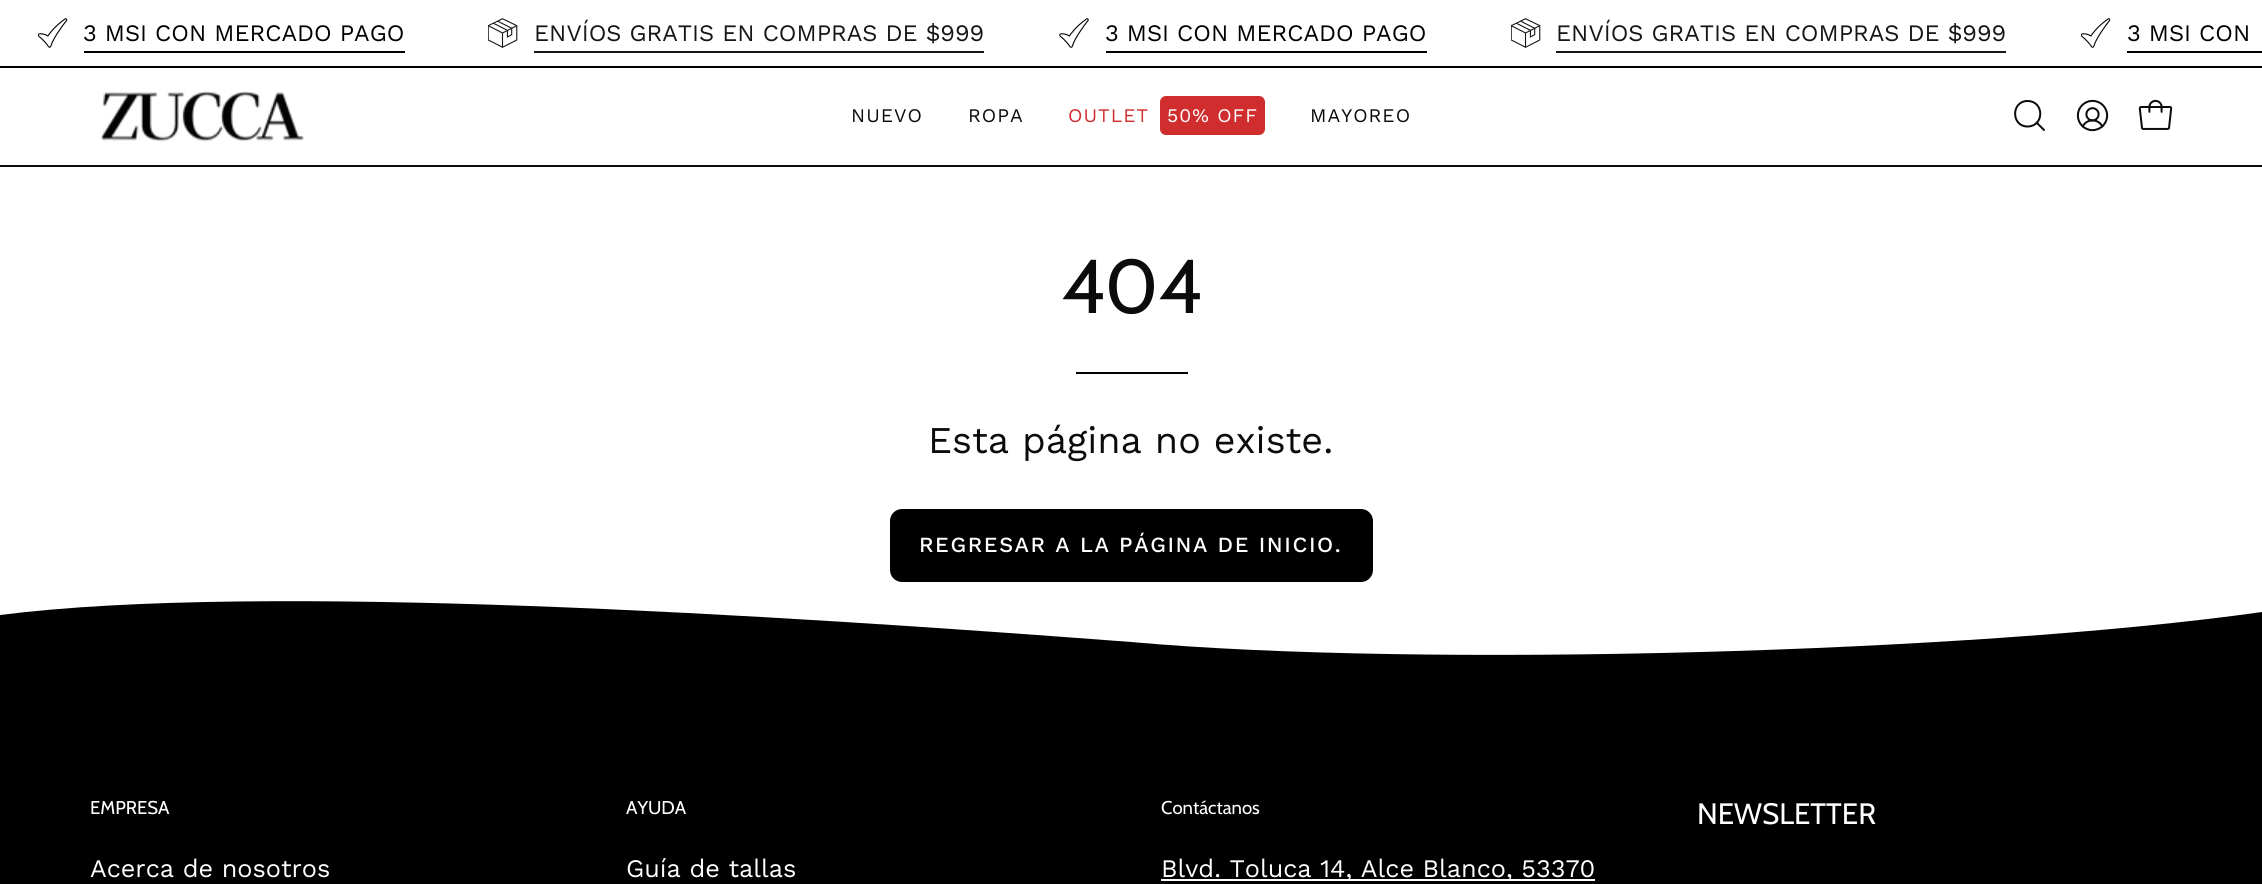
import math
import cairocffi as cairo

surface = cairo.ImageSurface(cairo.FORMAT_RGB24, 2262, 884)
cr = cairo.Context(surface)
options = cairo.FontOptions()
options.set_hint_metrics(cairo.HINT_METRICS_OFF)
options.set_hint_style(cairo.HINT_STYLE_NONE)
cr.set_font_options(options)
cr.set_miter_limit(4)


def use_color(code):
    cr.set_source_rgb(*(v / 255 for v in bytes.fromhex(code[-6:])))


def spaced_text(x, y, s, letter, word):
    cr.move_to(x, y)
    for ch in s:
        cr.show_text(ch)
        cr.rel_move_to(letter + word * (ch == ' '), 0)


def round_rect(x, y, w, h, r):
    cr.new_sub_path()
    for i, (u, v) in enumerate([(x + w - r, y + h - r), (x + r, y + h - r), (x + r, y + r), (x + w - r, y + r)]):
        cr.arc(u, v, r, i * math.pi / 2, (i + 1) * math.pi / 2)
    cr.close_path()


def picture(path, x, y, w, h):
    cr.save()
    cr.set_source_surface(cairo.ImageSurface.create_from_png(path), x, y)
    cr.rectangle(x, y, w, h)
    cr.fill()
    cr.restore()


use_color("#ffffff")
cr.paint()
use_color("#000000")
cr.rectangle(0, 66, 2262, 2)
cr.fill()
picture("img1.png", 38, 18, 30, 30)
cr.select_font_face("Work Sans")
cr.set_font_size(23.6)
cr.move_to(83, 41)
cr.show_text("3 MSI CON MERCADO PAGO")
cr.rectangle(84, 51, 321, 2)
cr.fill()
picture("img2.png", 488, 18, 30, 30)
use_color("#161616")
cr.move_to(534, 41)
cr.show_text("ENVÍOS GRATIS EN COMPRAS DE $999")
cr.rectangle(534, 51, 450, 2)
cr.fill()
picture("img3.png", 1059, 18, 30, 30)
use_color("#000000")
cr.move_to(1105, 41)
cr.show_text("3 MSI CON MERCADO PAGO")
cr.rectangle(1106, 51, 321, 2)
cr.fill()
picture("img2.png", 1511, 18, 30, 30)
use_color("#161616")
cr.move_to(1556, 41)
cr.show_text("ENVÍOS GRATIS EN COMPRAS DE $999")
cr.rectangle(1556, 51, 450, 2)
cr.fill()
picture("img1.png", 2081, 18, 30, 30)
use_color("#000000")
cr.move_to(2127, 41)
cr.show_text("3 MSI CON")
cr.rectangle(2127, 51, 135, 2)
cr.fill()
picture("img4.png", 101, 91, 203, 51)
cr.set_font_size(19.25)
use_color("#0b0b0b")
spaced_text(851, 122, "NUEVO", 1, 0)
spaced_text(968, 122, "ROPA", 1, 0)
use_color("#d02e2e")
spaced_text(1068, 122, "OUTLET", 1, 0)
round_rect(1160, 96, 105, 39, 6)
cr.fill()
use_color("#ffffff")
spaced_text(1167, 122, "50% OFF", 1, 0)
use_color("#0b0b0b")
spaced_text(1310, 122, "MAYOREO", 1, 0)
cr.new_path()
cr.move_to(2027.5, 126.5)
cr.curve_to(2044.5, 126.5, 2044.5, 101, 2027.5, 101)
cr.curve_to(2011, 101, 2011, 126.5, 2027.5, 126.5)
cr.close_path()
cr.move_to(2036.5, 122.5)
cr.line_to(2044, 130)
cr.set_line_cap(cairo.LINE_CAP_ROUND)
cr.set_line_join(cairo.LINE_JOIN_ROUND)
cr.stroke()
picture("img5.png", 2076, 99, 33, 33)
picture("img6.png", 2138, 99, 35, 31)
cr.rectangle(0, 165, 2262, 2)
cr.fill()
cr.select_font_face("Cabin")
cr.set_font_size(76)
cr.move_to(1061, 313)
cr.show_text("404")
use_color("#000000")
cr.rectangle(1076, 372, 112, 2)
cr.fill()
cr.select_font_face("Work Sans")
cr.set_font_size(37.75)
use_color("#0b0b0b")
cr.move_to(928, 453)
cr.show_text("Esta página no existe.")
use_color("#000000")
round_rect(890, 509, 483, 73, 12)
cr.fill()
cr.select_font_face("Work Sans Medium")
cr.set_font_size(21.6)
use_color("#ffffff")
spaced_text(919, 552, "REGRESAR A LA PÁGINA DE INICIO.", 1.6, 0)
use_color("#000000")
cr.rectangle(0, 686, 2262, 198)
cr.fill()
cr.save()
cr.rectangle(0, 600, 2262, 86)
cr.clip()
cr.new_path()
cr.move_to(0, 615)
cr.curve_to(259, 582, 776, 615, 1131, 642)
cr.curve_to(1422, 668, 1971, 653, 2262, 612)
cr.line_to(2262, 687)
cr.line_to(0, 687)
cr.fill()
cr.restore()
cr.select_font_face("Cabin")
cr.set_font_size(18.5)
use_color("#ffffff")
cr.move_to(90, 814)
cr.show_text("EMPRESA")
cr.select_font_face("Work Sans")
cr.set_font_size(25.25)
cr.move_to(90, 877)
cr.show_text("Acerca de nosotros")
cr.select_font_face("Cabin")
cr.set_font_size(18.5)
cr.move_to(626, 814)
cr.show_text("AYUDA")
cr.select_font_face("Work Sans")
cr.set_font_size(25.25)
cr.move_to(626, 877)
cr.show_text("Guía de tallas")
cr.select_font_face("Cabin")
cr.set_font_size(18.5)
cr.move_to(1161, 814)
cr.show_text("Contáctanos")
cr.rectangle(1161, 879, 434, 2)
cr.fill()
cr.select_font_face("Work Sans")
cr.set_font_size(25.25)
cr.move_to(1161, 877)
cr.show_text("Blvd. Toluca 14, Alce Blanco, 53370")
cr.select_font_face("Cabin")
cr.set_font_size(29.5)
cr.move_to(1697, 824)
cr.show_text("NEWSLETTER")
surface.write_to_png("result.png")
